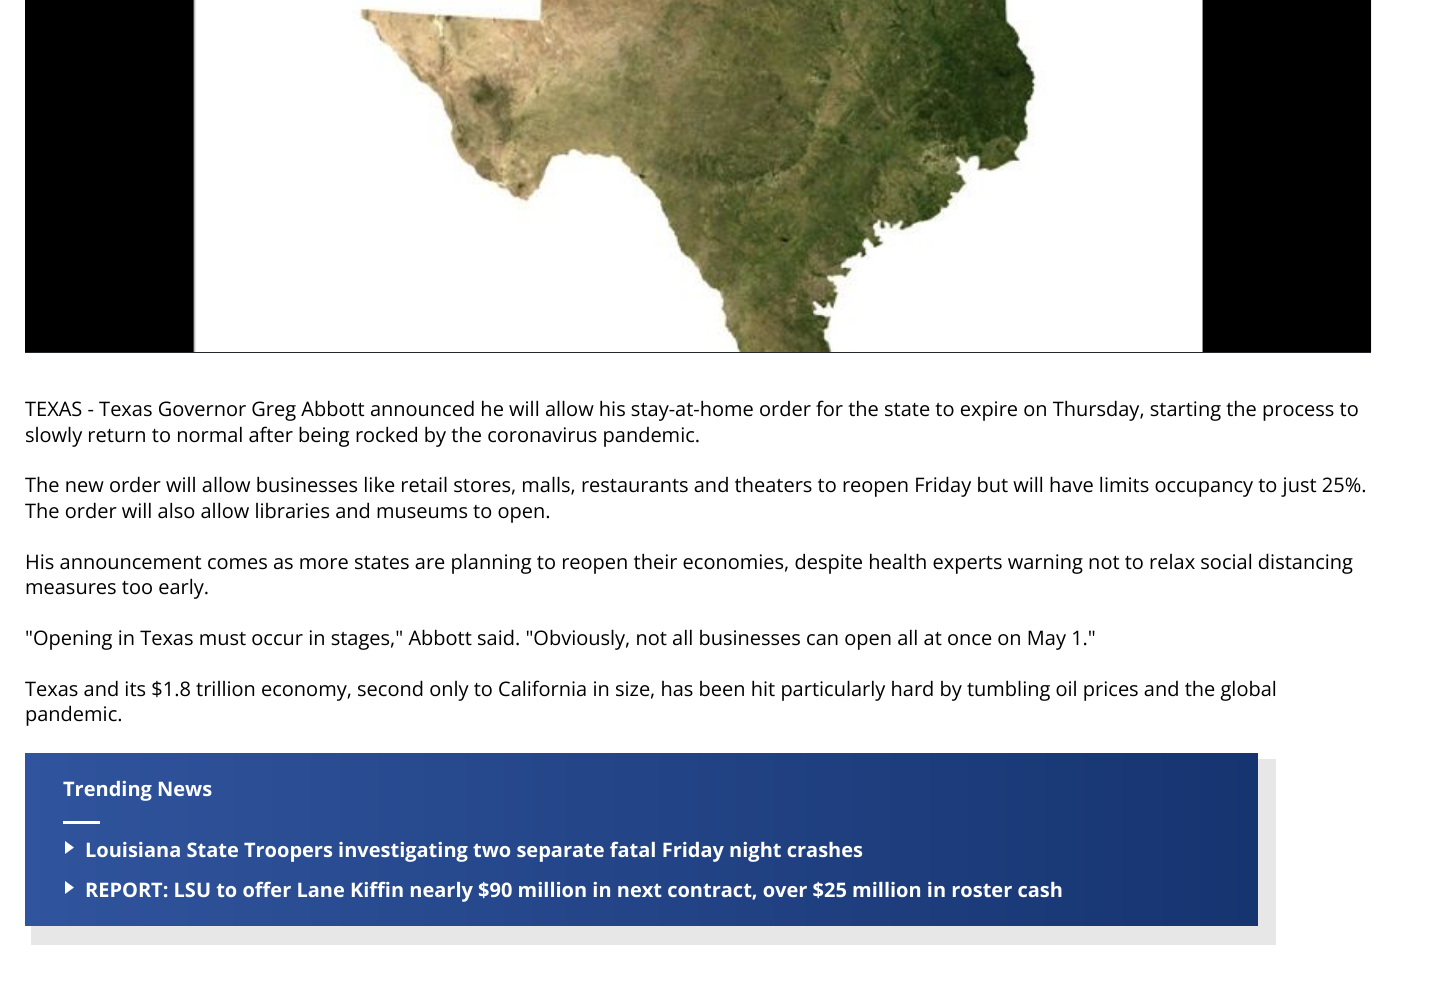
import math
import cairocffi as cairo

surface = cairo.ImageSurface(cairo.FORMAT_RGB24, 1433, 984)
cr = cairo.Context(surface)
options = cairo.FontOptions()
options.set_hint_metrics(cairo.HINT_METRICS_OFF)
options.set_hint_style(cairo.HINT_STYLE_NONE)
cr.set_font_options(options)
cr.set_miter_limit(4)


def use_color(code):
    cr.set_source_rgb(*(v / 255 for v in bytes.fromhex(code[-6:])))


def picture(path, x, y, w, h):
    cr.save()
    cr.set_source_surface(cairo.ImageSurface.create_from_png(path), x, y)
    cr.rectangle(x, y, w, h)
    cr.fill()
    cr.restore()


use_color("#ffffff")
cr.paint()
use_color("#21262c")
cr.rectangle(25, 352, 1346, 1)
cr.fill()
picture("img1.png", 25, 0, 1347, 352)
cr.select_font_face("Open Sans")
cr.set_font_size(20)
use_color("#000000")
cr.move_to(25, 416)
cr.show_text("TEXAS - Texas Governor Greg Abbott announced he will allow his stay-at-home order for the state to expire on Thursday, starting the process to")
cr.move_to(25, 442)
cr.show_text("slowly return to normal after being rocked by the coronavirus pandemic.")
cr.move_to(25, 492)
cr.show_text("The new order will allow businesses like retail stores, malls, restaurants and theaters to reopen Friday but will have limits occupancy to just 25%.")
cr.move_to(25, 518)
cr.show_text("The order will also allow libraries and museums to open.")
cr.move_to(25, 569)
cr.show_text("His announcement comes as more states are planning to reopen their economies, despite health experts warning not to relax social distancing")
cr.move_to(25, 594)
cr.show_text("measures too early.")
cr.move_to(25, 645)
cr.show_text("\"Opening in Texas must occur in stages,\" Abbott said. \"Obviously, not all businesses can open all at once on May 1.\"")
cr.move_to(25, 696)
cr.show_text("Texas and its $1.8 trillion economy, second only to California in size, has been hit particularly hard by tumbling oil prices and the global")
cr.move_to(25, 721)
cr.show_text("pandemic.")
use_color("#e7e7e7")
cr.new_path()
cr.move_to(31, 926)
cr.line_to(31, 945)
cr.line_to(1276, 945)
cr.line_to(1276, 759)
cr.line_to(1258, 759)
cr.line_to(1258, 926)
cr.close_path()
cr.fill()
gradient = cairo.LinearGradient(25, 839, 1258, 839)
gradient.add_color_stop_rgba(0, 0.188, 0.329, 0.616, 1)
gradient.add_color_stop_rgba(1, 0.086, 0.204, 0.439, 1)
cr.set_source(gradient)
cr.rectangle(25, 753, 1233, 173)
cr.fill()
cr.select_font_face("Open Sans", cairo.FONT_SLANT_NORMAL, cairo.FONT_WEIGHT_BOLD)
use_color("#ffffff")
cr.move_to(63, 796)
cr.show_text("Trending News")
cr.rectangle(63, 821, 37, 3)
cr.fill()
cr.new_path()
cr.move_to(65, 854)
cr.line_to(65, 841)
cr.line_to(74, 847.5)
cr.close_path()
cr.move_to(65, 894)
cr.line_to(65, 881)
cr.line_to(74, 887.5)
cr.close_path()
cr.fill()
cr.move_to(85, 857)
cr.show_text("Louisiana State Troopers investigating two separate fatal Friday night crashes")
cr.move_to(85, 897)
cr.show_text("REPORT: LSU to offer Lane Kiffin nearly $90 million in next contract, over $25 million in roster cash")
surface.write_to_png("result.png")
